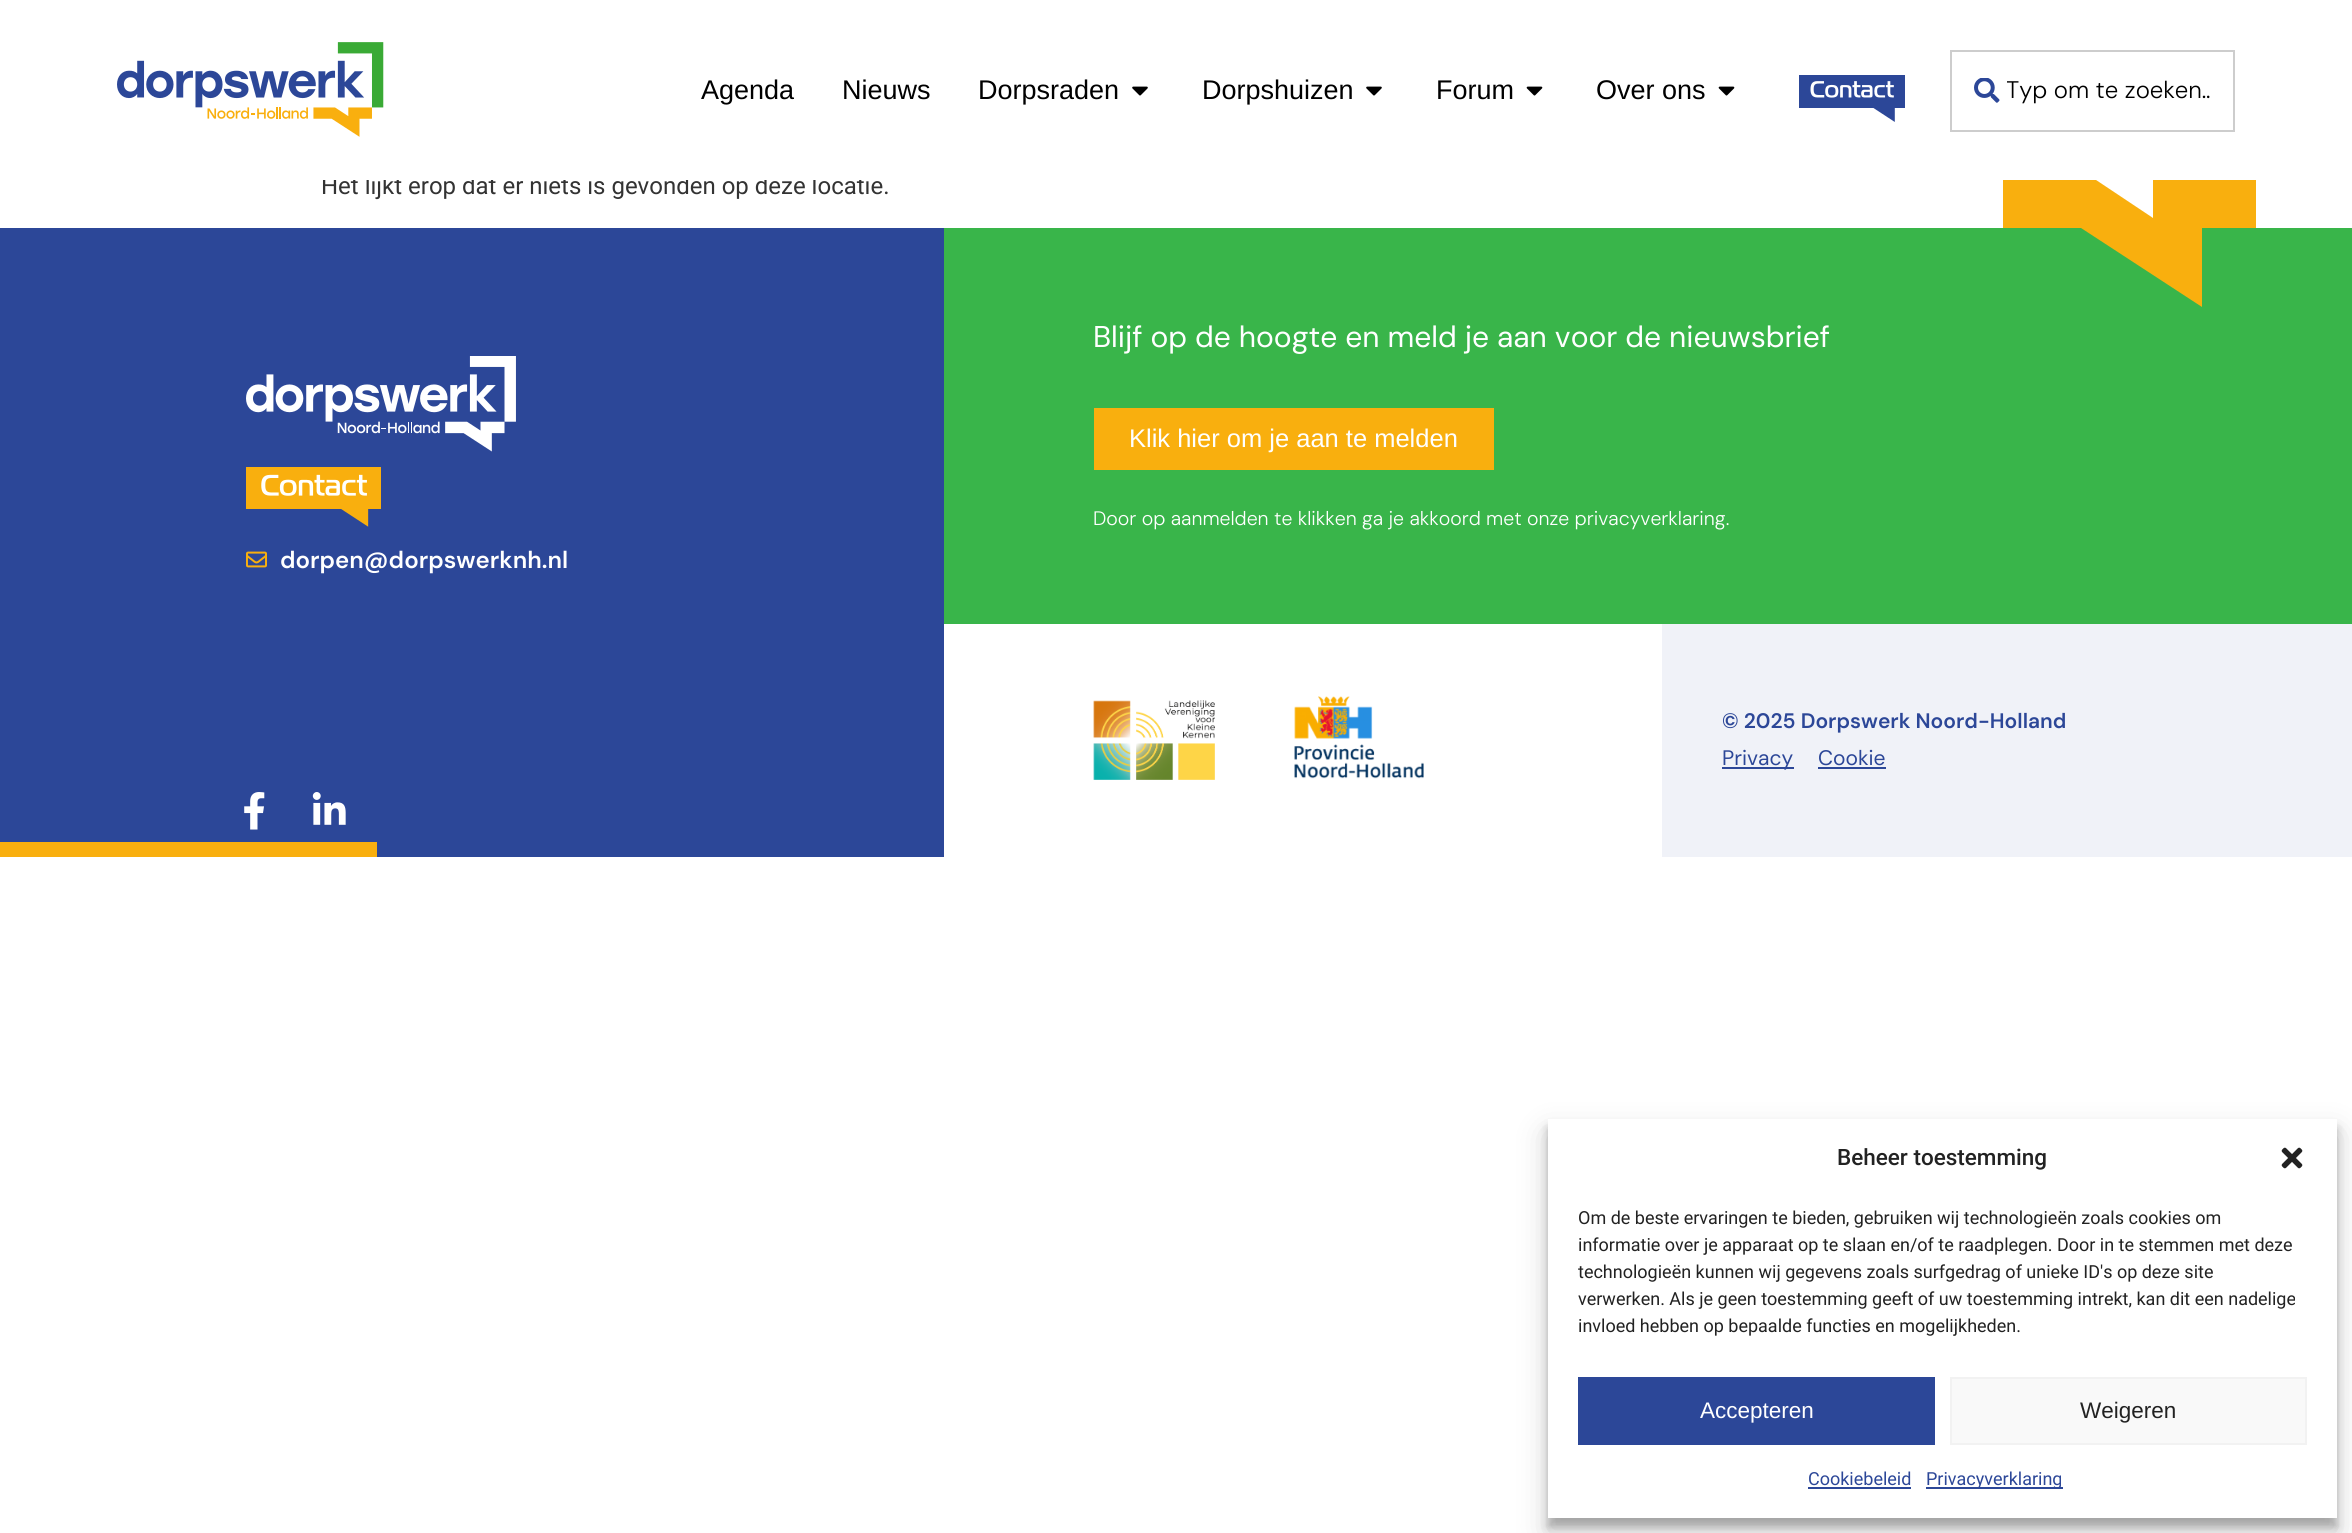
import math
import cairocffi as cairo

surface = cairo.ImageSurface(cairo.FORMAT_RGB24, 2352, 1533)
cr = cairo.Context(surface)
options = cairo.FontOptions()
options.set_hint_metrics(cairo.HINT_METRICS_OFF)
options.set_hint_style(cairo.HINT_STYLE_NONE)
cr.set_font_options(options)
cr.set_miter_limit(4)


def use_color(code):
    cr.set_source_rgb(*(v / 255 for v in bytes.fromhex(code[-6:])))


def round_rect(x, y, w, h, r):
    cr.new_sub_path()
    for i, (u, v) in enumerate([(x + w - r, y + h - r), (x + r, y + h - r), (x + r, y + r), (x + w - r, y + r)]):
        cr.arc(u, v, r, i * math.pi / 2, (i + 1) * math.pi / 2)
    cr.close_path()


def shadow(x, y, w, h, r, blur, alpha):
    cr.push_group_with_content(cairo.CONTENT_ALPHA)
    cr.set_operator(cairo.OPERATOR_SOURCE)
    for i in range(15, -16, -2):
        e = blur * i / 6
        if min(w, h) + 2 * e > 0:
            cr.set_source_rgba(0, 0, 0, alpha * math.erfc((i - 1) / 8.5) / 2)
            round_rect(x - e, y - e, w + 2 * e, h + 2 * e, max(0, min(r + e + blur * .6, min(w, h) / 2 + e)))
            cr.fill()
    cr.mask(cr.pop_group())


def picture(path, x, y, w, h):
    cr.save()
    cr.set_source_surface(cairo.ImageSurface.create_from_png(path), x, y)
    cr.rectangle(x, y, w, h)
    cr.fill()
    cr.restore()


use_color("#ffffff")
cr.paint()
cr.select_font_face("Roboto")
cr.set_font_size(24)
use_color("#333333")
cr.move_to(321, 194)
cr.show_text("Het lijkt erop dat er niets is gevonden op deze locatie.")
use_color("#ffffff")
cr.rectangle(322, 176, 547, 4)
cr.fill()
picture("img1.png", 117, 42, 267, 95)
cr.select_font_face("Liberation Sans")
cr.set_font_size(27)
use_color("#000000")
cr.move_to(701, 99)
cr.show_text("Agenda")
cr.move_to(842, 99)
cr.show_text("Nieuws")
cr.move_to(978, 99)
cr.show_text("Dorpsraden")
picture("img2.png", 1132, 86, 16, 10)
cr.move_to(1202, 99)
cr.show_text("Dorpshuizen")
picture("img2.png", 1366, 86, 16, 10)
cr.move_to(1436, 99)
cr.show_text("Forum")
picture("img3.png", 1526, 86, 17, 10)
cr.move_to(1596, 99)
cr.show_text("Over ons")
picture("img3.png", 1718, 86, 17, 10)
picture("img4.png", 1799, 75, 106, 47)
cr.rectangle(1951, 51, 283, 80)
use_color("#cdcdcd")
cr.stroke()
picture("img5.png", 1974, 78, 26, 25)
cr.save()
cr.rectangle(2007, 75, 203, 32)
cr.clip()
cr.select_font_face("DM Sans Light")
cr.set_font_size(24)
use_color("#000000")
cr.move_to(2006, 98)
cr.show_text("Typ om te zoeken…")
cr.restore()
use_color("#39b54a")
cr.rectangle(944, 228, 1408, 396)
cr.fill()
use_color("#f9af0e")
cr.new_path()
cr.move_to(2153, 180)
cr.line_to(2153, 218)
cr.line_to(2096, 180)
cr.line_to(2003, 180)
cr.line_to(2003, 228)
cr.line_to(2081, 228)
cr.line_to(2202, 307)
cr.line_to(2202, 228)
cr.line_to(2256, 228)
cr.line_to(2256, 180)
cr.close_path()
cr.fill()
use_color("#2c4798")
cr.rectangle(0, 228, 944, 629)
cr.fill()
picture("img6.png", 246, 356, 270, 96)
picture("img7.png", 246, 467, 135, 60)
picture("img8.png", 246, 551, 21, 17)
cr.select_font_face("DM Sans SemiBold")
cr.set_font_size(24)
use_color("#ffffff")
cr.move_to(280, 568)
cr.show_text("dorpen@dorpswerknh.nl")
picture("img9.png", 244, 792, 21, 38)
picture("img10.png", 312, 792, 34, 33)
use_color("#f9af0e")
cr.rectangle(0, 842, 377, 15)
cr.fill()
cr.select_font_face("DM Sans")
cr.set_font_size(30)
use_color("#ffffff")
cr.move_to(1093, 347)
cr.show_text("Blijf op de hoogte en meld je aan voor de nieuwsbrief")
use_color("#f9af0e")
cr.rectangle(1094, 408, 400, 62)
cr.fill()
cr.select_font_face("Liberation Sans")
cr.set_font_size(25.5)
use_color("#ffffff")
cr.move_to(1129, 447)
cr.show_text("Klik hier om je aan te melden")
cr.select_font_face("DM Sans Light")
cr.set_font_size(19.5)
cr.move_to(1093, 525)
cr.show_text("Door op aanmelden te klikken ga je akkoord met onze privacyverklaring.")
picture("img11.png", 1093, 700, 122, 80)
picture("img12.png", 1294, 696, 130, 83)
use_color("#f0f2f8")
cr.rectangle(1662, 624, 690, 233)
cr.fill()
cr.select_font_face("DM Sans SemiBold")
cr.set_font_size(21)
use_color("#2c4798")
cr.move_to(1722, 728)
cr.show_text("© 2025 Dorpswerk Noord-Holland")
cr.rectangle(1722, 767, 72, 2)
cr.fill()
cr.select_font_face("DM Sans")
cr.move_to(1722, 765)
cr.show_text("Privacy")
cr.move_to(1818, 765)
cr.show_text("Cookie")
cr.rectangle(1818, 767, 68, 2)
cr.fill()
cr.save()
cr.set_fill_rule(cairo.FILL_RULE_EVEN_ODD)
cr.new_path()
cr.move_to(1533, 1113)
cr.line_to(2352, 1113)
cr.line_to(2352, 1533)
cr.line_to(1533, 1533)
cr.close_path()
cr.move_to(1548, 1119)
cr.line_to(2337, 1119)
cr.line_to(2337, 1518)
cr.line_to(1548, 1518)
cr.close_path()
cr.clip()
use_color("#000000")
shadow(1548, 1128, 789, 399, 0, 4.5, 0.23)
cr.restore()
cr.save()
cr.set_fill_rule(cairo.FILL_RULE_EVEN_ODD)
cr.new_path()
cr.move_to(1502, 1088)
cr.line_to(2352, 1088)
cr.line_to(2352, 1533)
cr.line_to(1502, 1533)
cr.close_path()
cr.move_to(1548, 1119)
cr.line_to(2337, 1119)
cr.line_to(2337, 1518)
cr.line_to(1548, 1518)
cr.close_path()
cr.clip()
use_color("#000000")
shadow(1548, 1134, 789, 399, 0, 15, 0.19)
cr.restore()
cr.select_font_face("Roboto Medium")
cr.set_font_size(22.5)
use_color("#222222")
cr.move_to(1837, 1165)
cr.show_text("Beheer toestemming")
picture("img13.png", 2281, 1147, 22, 22)
cr.select_font_face("Roboto")
cr.set_font_size(18)
cr.move_to(1578, 1224)
cr.show_text("Om de beste ervaringen te bieden, gebruiken wij technologieën zoals cookies om")
cr.move_to(1578, 1251)
cr.show_text("informatie over je apparaat op te slaan en/of te raadplegen. Door in te stemmen met deze")
cr.move_to(1578, 1278)
cr.show_text("technologieën kunnen wij gegevens zoals surfgedrag of unieke ID's op deze site")
cr.move_to(1578, 1305)
cr.show_text("verwerken. Als je geen toestemming geeft of uw toestemming intrekt, kan dit een nadelige")
cr.move_to(1578, 1332)
cr.show_text("invloed hebben op bepaalde functies en mogelijkheden.")
use_color("#2c4798")
cr.rectangle(1578, 1377, 357, 68)
cr.fill()
cr.select_font_face("Liberation Sans")
cr.set_font_size(22.5)
use_color("#ffffff")
cr.move_to(1700, 1418)
cr.show_text("Accepteren")
use_color("#f9f9f9")
cr.rectangle(1951, 1378, 355, 66)
cr.fill_preserve()
use_color("#f2f2f2")
cr.stroke()
use_color("#222222")
cr.move_to(2080, 1418)
cr.show_text("Weigeren")
cr.select_font_face("Roboto")
cr.set_font_size(18)
use_color("#2c4798")
cr.move_to(1808, 1485)
cr.show_text("Cookiebeleid")
cr.rectangle(1808, 1487, 103, 2)
cr.fill()
cr.rectangle(1926, 1487, 137, 2)
cr.fill()
cr.move_to(1926, 1485)
cr.show_text("Privacyverklaring")
surface.write_to_png("result.png")
